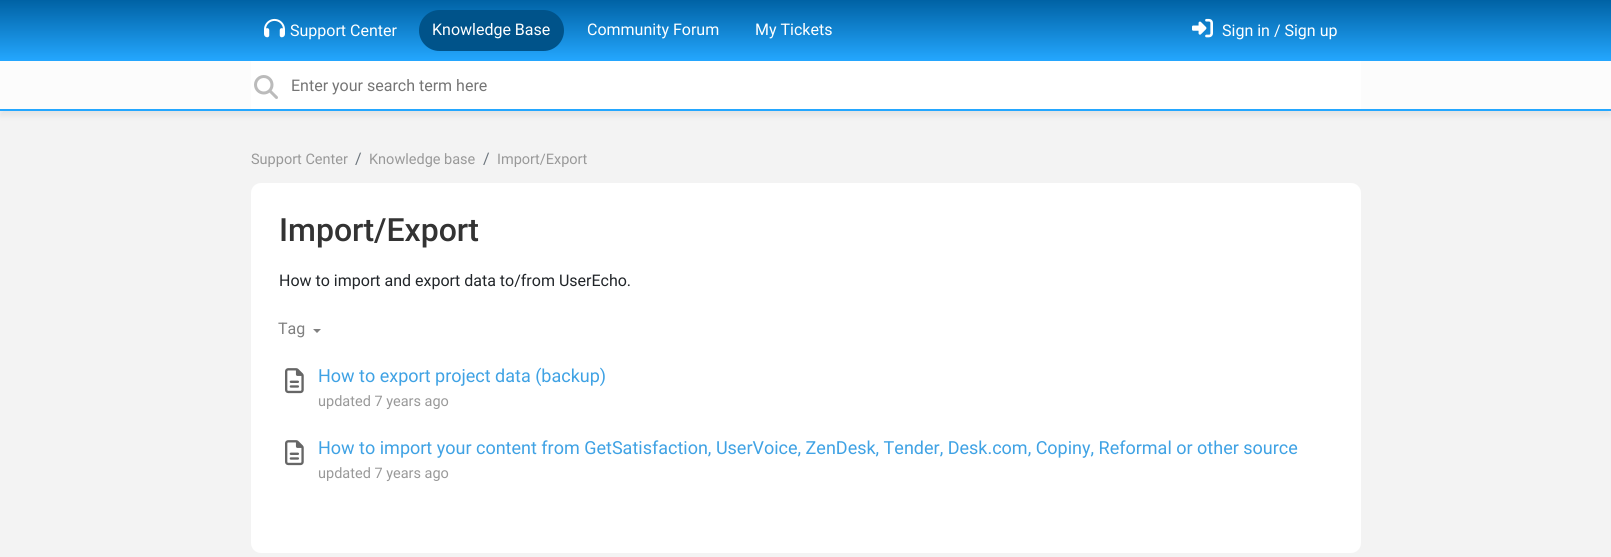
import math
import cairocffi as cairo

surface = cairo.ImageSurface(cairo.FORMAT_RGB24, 1611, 557)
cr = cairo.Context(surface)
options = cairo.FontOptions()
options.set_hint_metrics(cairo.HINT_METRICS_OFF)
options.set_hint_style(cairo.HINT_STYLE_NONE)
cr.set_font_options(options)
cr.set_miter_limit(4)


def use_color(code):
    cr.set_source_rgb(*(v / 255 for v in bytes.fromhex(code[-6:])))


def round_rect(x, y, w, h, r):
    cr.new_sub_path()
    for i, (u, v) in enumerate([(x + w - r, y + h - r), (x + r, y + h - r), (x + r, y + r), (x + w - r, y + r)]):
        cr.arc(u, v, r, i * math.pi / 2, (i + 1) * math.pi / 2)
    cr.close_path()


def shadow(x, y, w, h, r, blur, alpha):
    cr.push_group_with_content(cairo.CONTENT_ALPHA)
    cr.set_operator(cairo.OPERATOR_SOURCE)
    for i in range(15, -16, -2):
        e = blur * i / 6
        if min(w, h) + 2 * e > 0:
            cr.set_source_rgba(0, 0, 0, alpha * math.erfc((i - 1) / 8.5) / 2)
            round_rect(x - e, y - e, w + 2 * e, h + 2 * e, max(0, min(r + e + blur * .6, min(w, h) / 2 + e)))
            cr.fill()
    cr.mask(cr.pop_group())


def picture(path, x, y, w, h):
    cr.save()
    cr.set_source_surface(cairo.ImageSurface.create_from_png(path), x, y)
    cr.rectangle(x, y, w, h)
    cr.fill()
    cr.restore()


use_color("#f3f3f3")
cr.paint()
gradient = cairo.LinearGradient(806, 0, 806, 61)
gradient.add_color_stop_rgba(0, 0, 0.384, 0.643, 1)
gradient.add_color_stop_rgba(1, 0.141, 0.655, 1, 1)
cr.set_source(gradient)
cr.rectangle(0, 0, 1611, 61)
cr.fill()
picture("img1.png", 264, 18, 21, 20)
cr.select_font_face("Roboto")
cr.set_font_size(16)
use_color("#ffffff")
cr.move_to(290, 36)
cr.show_text("Support Center")
use_color("#00538a")
round_rect(419, 10, 145, 41, 20.5)
cr.fill()
use_color("#ffffff")
cr.move_to(432, 35)
cr.show_text("Knowledge Base")
cr.move_to(587, 35)
cr.show_text("Community Forum")
cr.move_to(755, 35)
cr.show_text("My Tickets")
picture("img2.png", 1192, 18, 21, 20)
cr.move_to(1222, 36)
cr.show_text("Sign in / Sign up")
use_color("#646464")
shadow(0, 66, 1611, 50, 0, 2.5, 0.1)
use_color("#fcfcfc")
cr.rectangle(0, 61, 1611, 48)
cr.fill()
use_color("#24a7ff")
cr.rectangle(0, 109, 1611, 2)
cr.fill()
use_color("#ffffff")
cr.rectangle(251, 61, 1110, 48)
cr.fill()
picture("img3.png", 254, 75, 24, 24)
use_color("#757575")
cr.move_to(291, 91)
cr.show_text("Enter your search term here")
cr.set_font_size(14.5)
use_color("#999999")
cr.move_to(251, 164)
cr.show_text("Support Center")
cr.set_font_size(16)
use_color("#6c757d")
cr.move_to(355, 164)
cr.show_text("/")
cr.set_font_size(14.5)
use_color("#999999")
cr.move_to(369, 164)
cr.show_text("Knowledge base")
cr.set_font_size(16)
use_color("#6c757d")
cr.move_to(483, 164)
cr.show_text("/")
cr.set_font_size(14.5)
use_color("#999999")
cr.move_to(497, 164)
cr.show_text("Import/Export")
use_color("#ffffff")
round_rect(251, 183, 1110, 370, 10)
cr.fill()
cr.select_font_face("Roboto Medium")
cr.set_font_size(32)
use_color("#333333")
cr.move_to(279, 241)
cr.show_text("Import/Export")
cr.select_font_face("Roboto")
cr.set_font_size(16)
use_color("#212529")
cr.move_to(279, 286)
cr.show_text("How to import and export data to/from UserEcho.")
use_color("#808080")
cr.move_to(278, 334)
cr.show_text("Tag")
cr.new_path()
cr.move_to(313, 329)
cr.line_to(321, 329)
cr.line_to(317, 333)
cr.close_path()
cr.fill()
picture("img4.png", 285, 368, 19, 26)
cr.set_font_size(18)
use_color("#3fa2e4")
cr.move_to(318, 382)
cr.show_text("How to export project data (backup)")
cr.set_font_size(14.5)
use_color("#999999")
cr.move_to(318, 406)
cr.show_text("updated 7 years ago")
picture("img4.png", 285, 440, 19, 26)
cr.set_font_size(18)
use_color("#3fa2e4")
cr.move_to(318, 454)
cr.show_text("How to import your content from GetSatisfaction, UserVoice, ZenDesk, Tender, Desk.com, Copiny, Reformal or other source")
cr.set_font_size(14.5)
use_color("#999999")
cr.move_to(318, 478)
cr.show_text("updated 7 years ago")
surface.write_to_png("result.png")
